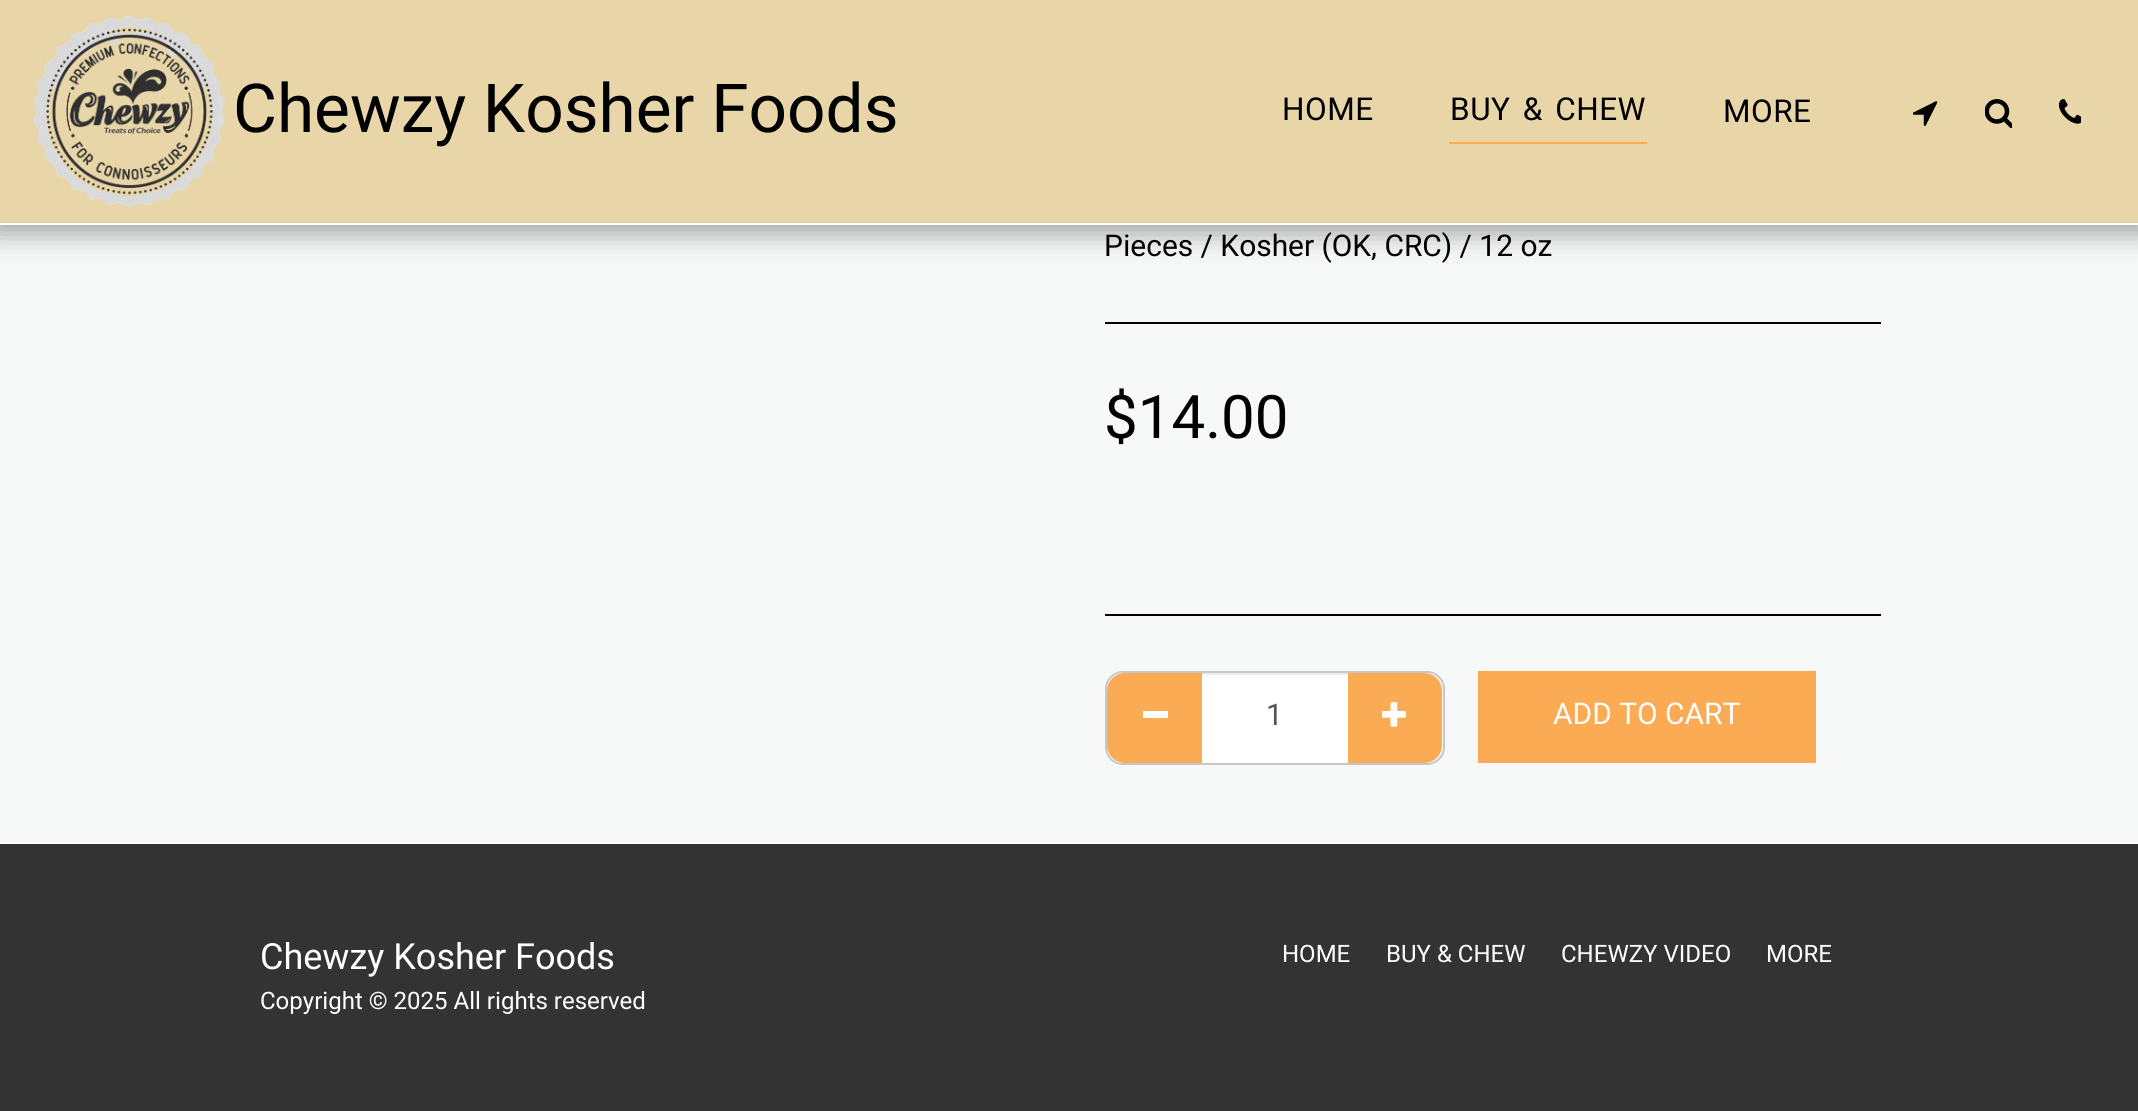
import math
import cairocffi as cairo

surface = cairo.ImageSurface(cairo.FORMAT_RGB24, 2138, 1111)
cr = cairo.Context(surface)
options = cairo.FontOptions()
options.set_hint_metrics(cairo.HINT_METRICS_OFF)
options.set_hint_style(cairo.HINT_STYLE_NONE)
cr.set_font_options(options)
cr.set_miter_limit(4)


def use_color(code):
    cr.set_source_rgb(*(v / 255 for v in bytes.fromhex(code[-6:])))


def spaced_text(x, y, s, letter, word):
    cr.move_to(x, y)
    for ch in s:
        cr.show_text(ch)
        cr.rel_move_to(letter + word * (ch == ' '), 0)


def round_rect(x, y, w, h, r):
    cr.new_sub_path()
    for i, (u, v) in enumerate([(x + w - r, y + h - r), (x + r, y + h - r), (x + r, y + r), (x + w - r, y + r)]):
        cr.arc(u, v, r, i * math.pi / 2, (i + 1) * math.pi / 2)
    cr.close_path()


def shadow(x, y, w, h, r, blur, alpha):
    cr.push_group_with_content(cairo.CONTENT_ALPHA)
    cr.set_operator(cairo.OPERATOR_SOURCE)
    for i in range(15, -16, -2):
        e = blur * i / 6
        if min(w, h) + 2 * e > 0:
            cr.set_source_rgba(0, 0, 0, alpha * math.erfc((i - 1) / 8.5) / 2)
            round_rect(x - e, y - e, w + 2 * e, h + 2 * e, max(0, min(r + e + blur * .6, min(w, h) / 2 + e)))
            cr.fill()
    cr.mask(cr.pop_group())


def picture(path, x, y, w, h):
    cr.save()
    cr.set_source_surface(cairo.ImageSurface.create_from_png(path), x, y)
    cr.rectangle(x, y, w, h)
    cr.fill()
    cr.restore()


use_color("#333333")
cr.paint()
use_color("#f7f9f8")
cr.rectangle(0, 225, 2138, 617)
cr.fill()
use_color("#000000")
shadow(-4, 0, 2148, 234, 0, 13.5, 0.35)
use_color("#e8d6a8")
cr.rectangle(0, 0, 2138, 223)
cr.fill()
use_color("#ffffff")
cr.rectangle(0, 223, 2138, 2)
cr.fill()
picture("img1.png", 33, 15, 192, 192)
cr.select_font_face("Heebo")
cr.set_font_size(67.5)
use_color("#000000")
cr.move_to(233, 132)
cr.show_text("Chewzy Kosher Foods")
cr.set_font_size(31.5)
spaced_text(1282, 120, "HOME", 0.5, 0)
spaced_text(1450, 120, "BUY & CHEW", 0.5, 4)
use_color("#fcab55")
cr.rectangle(1449, 142, 198, 2)
cr.fill()
use_color("#000000")
spaced_text(1723, 122, "MORE", 0.5, 0)
picture("img2.png", 1913, 101, 25, 25)
picture("img3.png", 1985, 99, 27, 29)
picture("img4.png", 2059, 99, 22, 25)
cr.set_font_size(29.9)
cr.move_to(1104, 256)
cr.show_text("Pieces / Kosher (OK, CRC) / 12 oz")
cr.rectangle(1105, 322, 776, 2)
cr.fill()
cr.set_font_size(60)
cr.move_to(1104, 438)
cr.show_text("$14.00")
cr.rectangle(1105, 614, 776, 2)
cr.fill()
round_rect(1106, 672, 338, 92, 17)
use_color("#c6c7c6")
cr.stroke()
use_color("#fcab55")
cr.new_path()
cr.move_to(1125, 673)
cr.line_to(1204, 673)
cr.line_to(1204, 763)
cr.line_to(1125, 763)
cr.curve_to(1115, 763, 1107, 755, 1107, 745)
cr.line_to(1107, 691)
cr.curve_to(1107, 681, 1115, 673, 1125, 673)
cr.close_path()
cr.fill()
use_color("#ffffff")
cr.rectangle(1143, 711, 25, 7)
cr.fill()
use_color("#fcab55")
cr.new_path()
cr.move_to(1346, 673)
cr.line_to(1424, 673)
cr.curve_to(1434, 673, 1442, 681, 1442, 691)
cr.line_to(1442, 745)
cr.curve_to(1442, 755, 1434, 763, 1424, 763)
cr.line_to(1346, 763)
cr.close_path()
cr.fill()
use_color("#ffffff")
cr.rectangle(1202, 675, 146, 88)
cr.fill()
use_color("#ececec")
cr.rectangle(1202, 673, 146, 2)
cr.fill()
cr.set_font_size(29.9)
use_color("#555555")
cr.move_to(1266, 725)
cr.show_text("1")
picture("img5.png", 1382, 702, 24, 25)
use_color("#fcab55")
cr.rectangle(1478, 671, 338, 92)
cr.fill()
use_color("#ffffff")
cr.move_to(1553, 724)
cr.show_text("ADD TO CART")
cr.rectangle(0, 842, 2138, 2)
cr.fill()
cr.set_font_size(36)
cr.move_to(260, 969)
cr.show_text("Chewzy Kosher Foods")
cr.set_font_size(24)
cr.move_to(260, 1009)
cr.show_text("Copyright © 2025 All rights reserved")
cr.move_to(1282, 962)
cr.show_text("HOME")
cr.move_to(1386, 962)
cr.show_text("BUY & CHEW")
cr.move_to(1561, 962)
cr.show_text("CHEWZY VIDEO")
cr.move_to(1766, 962)
cr.show_text("MORE")
surface.write_to_png("result.png")
